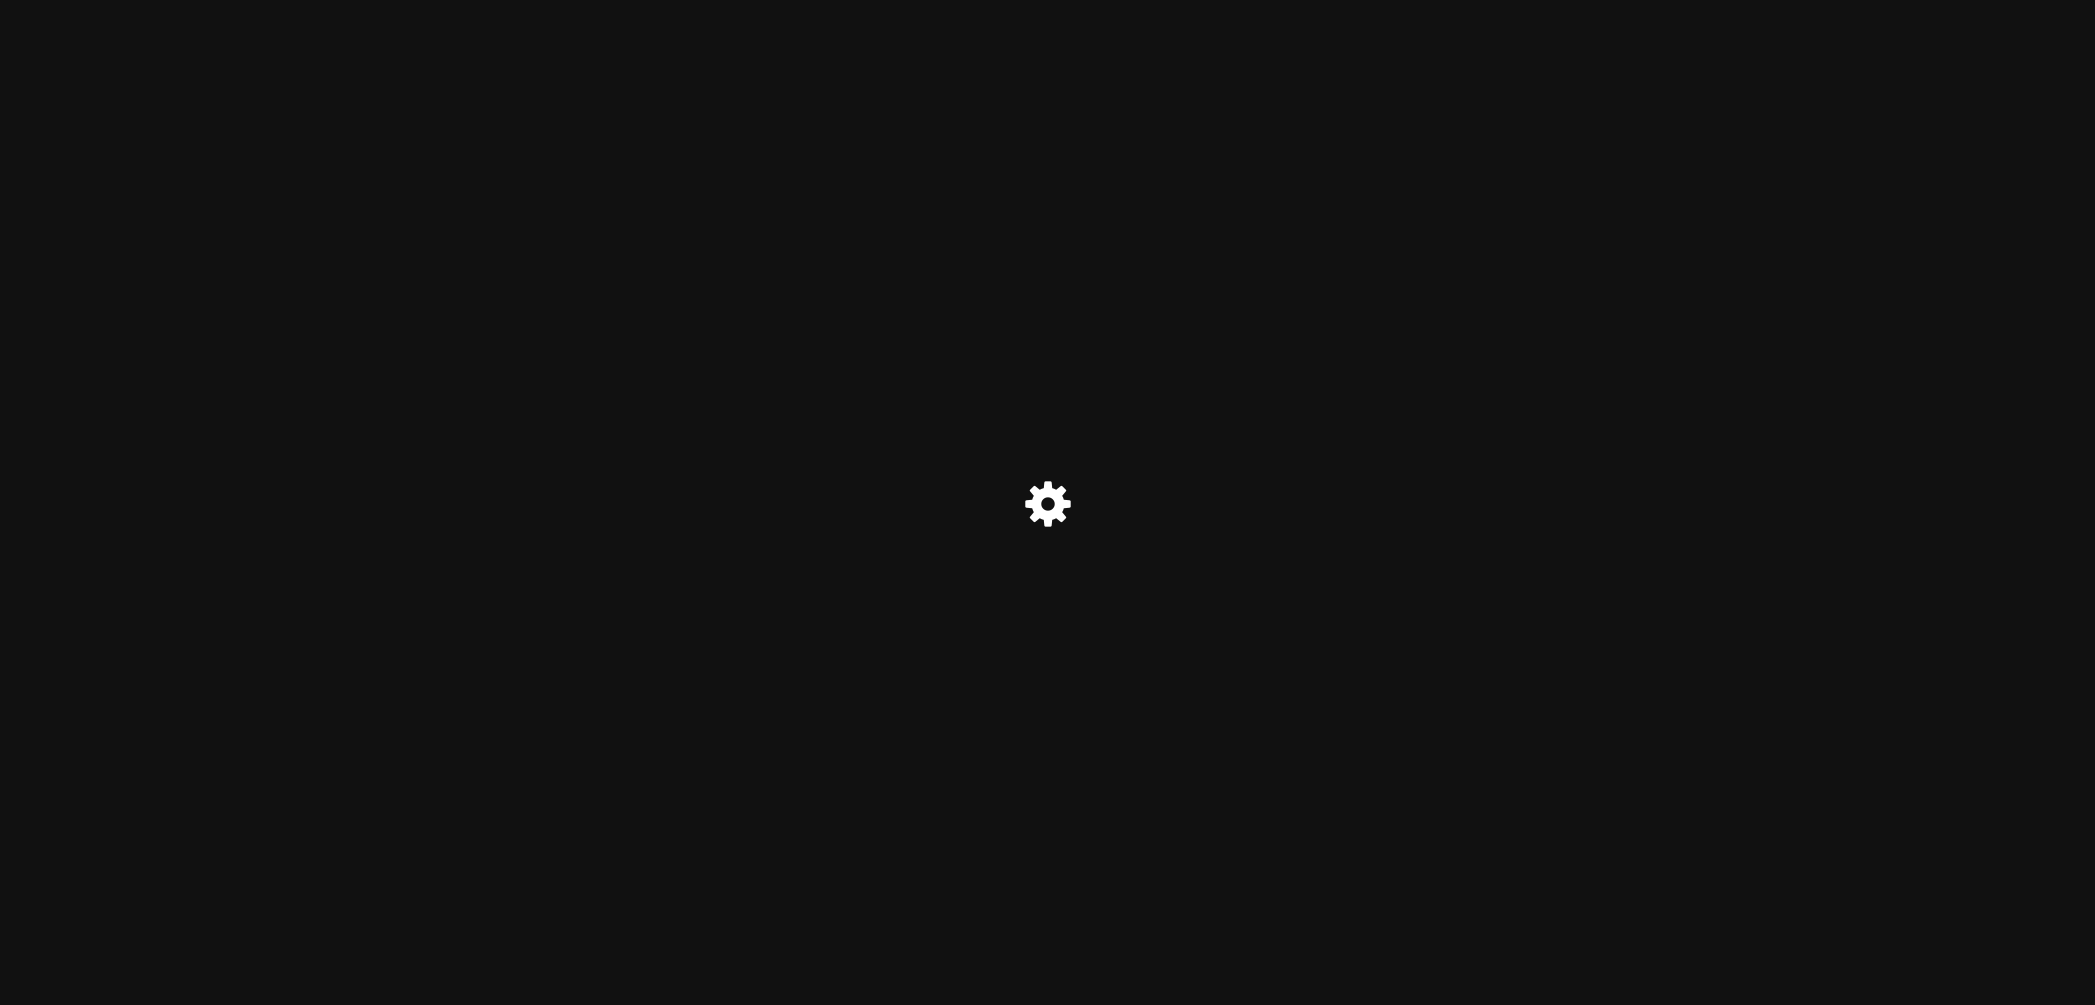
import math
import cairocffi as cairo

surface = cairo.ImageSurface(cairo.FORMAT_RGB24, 2095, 1005)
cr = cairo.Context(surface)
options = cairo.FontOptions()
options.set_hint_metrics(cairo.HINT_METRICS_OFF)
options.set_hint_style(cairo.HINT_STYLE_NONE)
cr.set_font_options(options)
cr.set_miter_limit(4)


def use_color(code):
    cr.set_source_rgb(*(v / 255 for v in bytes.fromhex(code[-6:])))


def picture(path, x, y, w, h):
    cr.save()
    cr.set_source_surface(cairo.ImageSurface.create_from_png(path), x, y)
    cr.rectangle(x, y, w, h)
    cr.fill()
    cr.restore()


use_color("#111111")
cr.paint()
picture("img1.png", 1025, 481, 46, 46)
surface.write_to_png("result.png")
